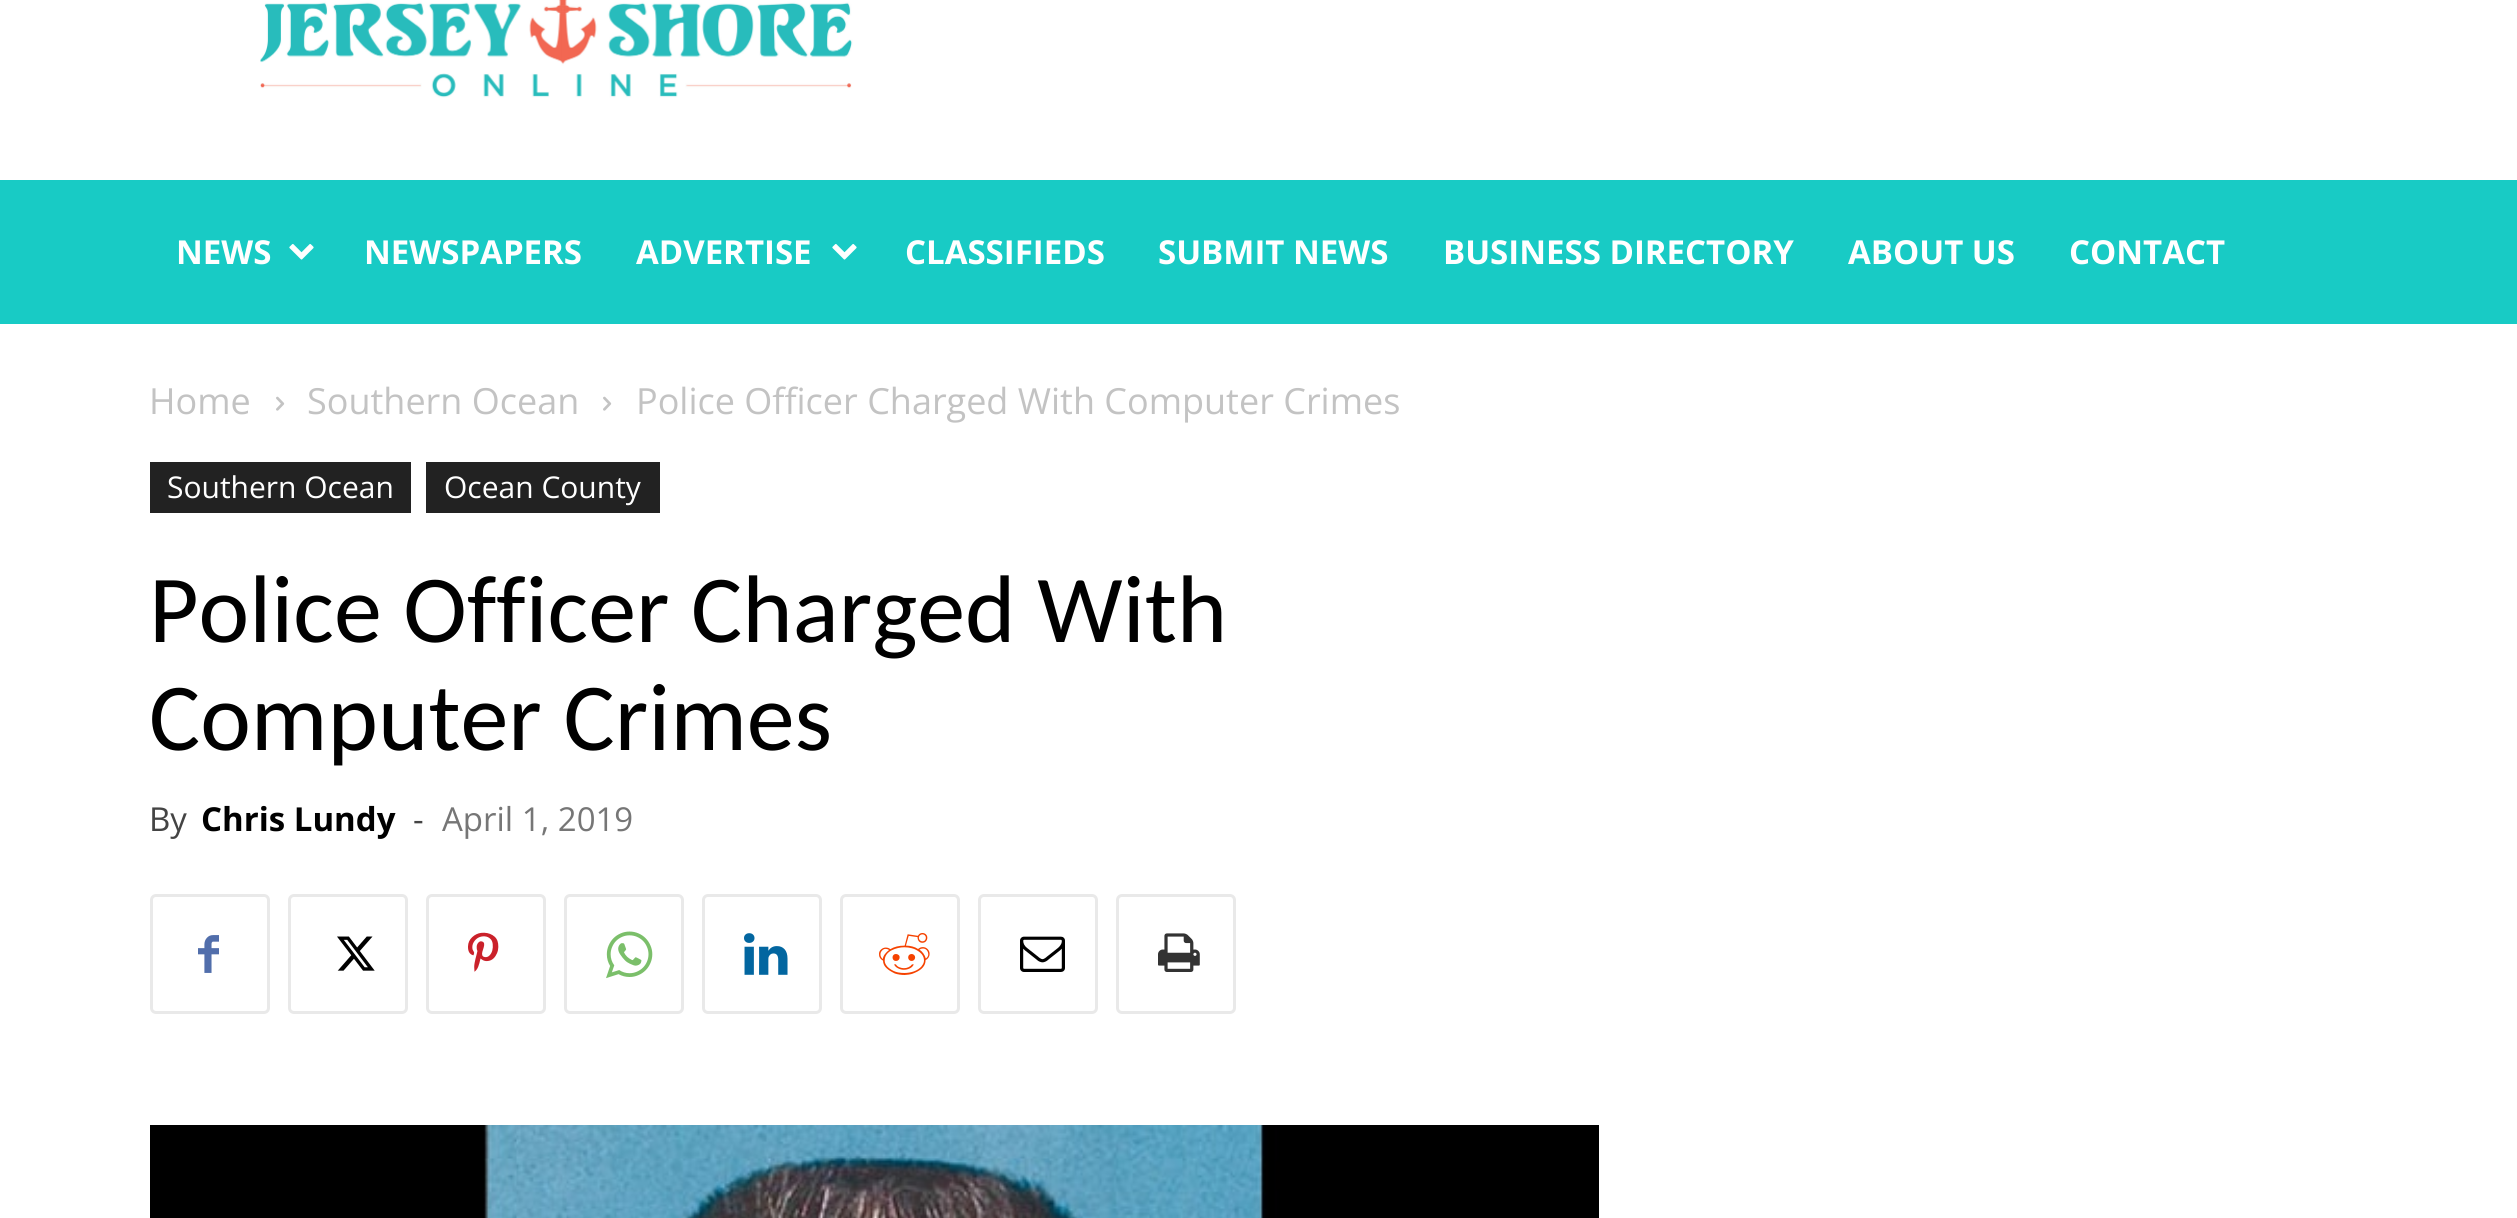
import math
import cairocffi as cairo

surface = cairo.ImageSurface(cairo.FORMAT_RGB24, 2517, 1218)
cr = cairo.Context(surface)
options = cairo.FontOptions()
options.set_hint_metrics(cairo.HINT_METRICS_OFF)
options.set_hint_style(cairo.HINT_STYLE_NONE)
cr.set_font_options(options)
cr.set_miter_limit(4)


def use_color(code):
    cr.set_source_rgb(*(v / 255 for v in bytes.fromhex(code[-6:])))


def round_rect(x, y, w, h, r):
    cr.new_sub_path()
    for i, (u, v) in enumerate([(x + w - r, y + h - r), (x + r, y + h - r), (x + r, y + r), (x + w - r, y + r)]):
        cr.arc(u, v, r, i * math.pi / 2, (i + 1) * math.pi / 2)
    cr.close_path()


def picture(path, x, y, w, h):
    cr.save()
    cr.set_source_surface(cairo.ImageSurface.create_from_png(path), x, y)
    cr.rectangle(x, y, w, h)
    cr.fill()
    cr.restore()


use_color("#ffffff")
cr.paint()
picture("img1.png", 260, 0, 593, 98)
use_color("#18cbc5")
cr.rectangle(0, 180, 2517, 144)
cr.fill()
cr.select_font_face("Open Sans", cairo.FONT_SLANT_NORMAL, cairo.FONT_WEIGHT_BOLD)
cr.set_font_size(33)
use_color("#ffffff")
cr.move_to(176, 264)
cr.show_text("NEWS")
picture("img2.png", 289, 244, 25, 16)
cr.move_to(364, 264)
cr.show_text("NEWSPAPERS")
cr.move_to(636, 264)
cr.show_text("ADVERTISE")
picture("img2.png", 832, 244, 25, 16)
cr.move_to(905, 264)
cr.show_text("CLASSIFIEDS")
cr.move_to(1158, 264)
cr.show_text("SUBMIT NEWS")
cr.move_to(1443, 264)
cr.show_text("BUSINESS DIRECTORY")
cr.move_to(1848, 264)
cr.show_text("ABOUT US")
cr.move_to(2069, 264)
cr.show_text("CONTACT")
cr.select_font_face("Open Sans")
cr.set_font_size(36)
use_color("#c3c3c3")
cr.move_to(149, 414)
cr.show_text("Home")
picture("img3.png", 276, 396, 9, 15)
cr.move_to(307, 414)
cr.show_text("Southern Ocean")
picture("img3.png", 603, 396, 9, 15)
cr.move_to(636, 414)
cr.show_text("Police Officer Charged With Computer Crimes")
use_color("#222222")
cr.rectangle(150, 462, 261, 51)
cr.fill()
cr.set_font_size(30)
use_color("#ffffff")
cr.move_to(167, 498)
cr.show_text("Southern Ocean")
use_color("#222222")
cr.rectangle(426, 462, 234, 51)
cr.fill()
use_color("#ffffff")
cr.move_to(444, 498)
cr.show_text("Ocean County")
cr.select_font_face("Carlito")
cr.set_font_size(96)
use_color("#000000")
cr.move_to(149, 642)
cr.show_text("Police Officer Charged With")
cr.move_to(149, 750)
cr.show_text("Computer Crimes")
cr.select_font_face("Open Sans")
cr.set_font_size(33)
use_color("#444444")
cr.move_to(149, 831)
cr.show_text("By")
cr.select_font_face("Open Sans", cairo.FONT_SLANT_NORMAL, cairo.FONT_WEIGHT_BOLD)
use_color("#000000")
cr.move_to(201, 831)
cr.show_text("Chris Lundy")
cr.select_font_face("Open Sans")
use_color("#444444")
cr.move_to(413, 831)
cr.show_text("-")
use_color("#767676")
cr.move_to(442, 831)
cr.show_text("April 1, 2019")
round_rect(151.5, 895.5, 117, 117, 4.5)
use_color("#e9e9e9")
cr.set_line_width(3)
cr.stroke()
picture("img4.png", 198, 935, 21, 38)
round_rect(289.5, 895.5, 117, 117, 4.5)
cr.stroke()
picture("img5.png", 337, 936, 38, 35)
round_rect(427.5, 895.5, 117, 117, 4.5)
cr.stroke()
picture("img6.png", 468, 932, 31, 40)
round_rect(565.5, 895.5, 117, 117, 4.5)
cr.stroke()
picture("img7.png", 606, 931, 47, 48)
round_rect(703.5, 895.5, 117, 117, 4.5)
cr.stroke()
picture("img8.png", 744, 933, 44, 42)
round_rect(841.5, 895.5, 117, 117, 4.5)
cr.stroke()
picture("img9.png", 879, 933, 51, 42)
round_rect(979.5, 895.5, 117, 117, 4.5)
cr.stroke()
picture("img10.png", 1020, 936, 45, 36)
round_rect(1117.5, 895.5, 117, 117, 4.5)
cr.stroke()
picture("img11.png", 1158, 933, 42, 39)
picture("img12.png", 150, 1125, 1449, 93)
surface.write_to_png("result.png")
